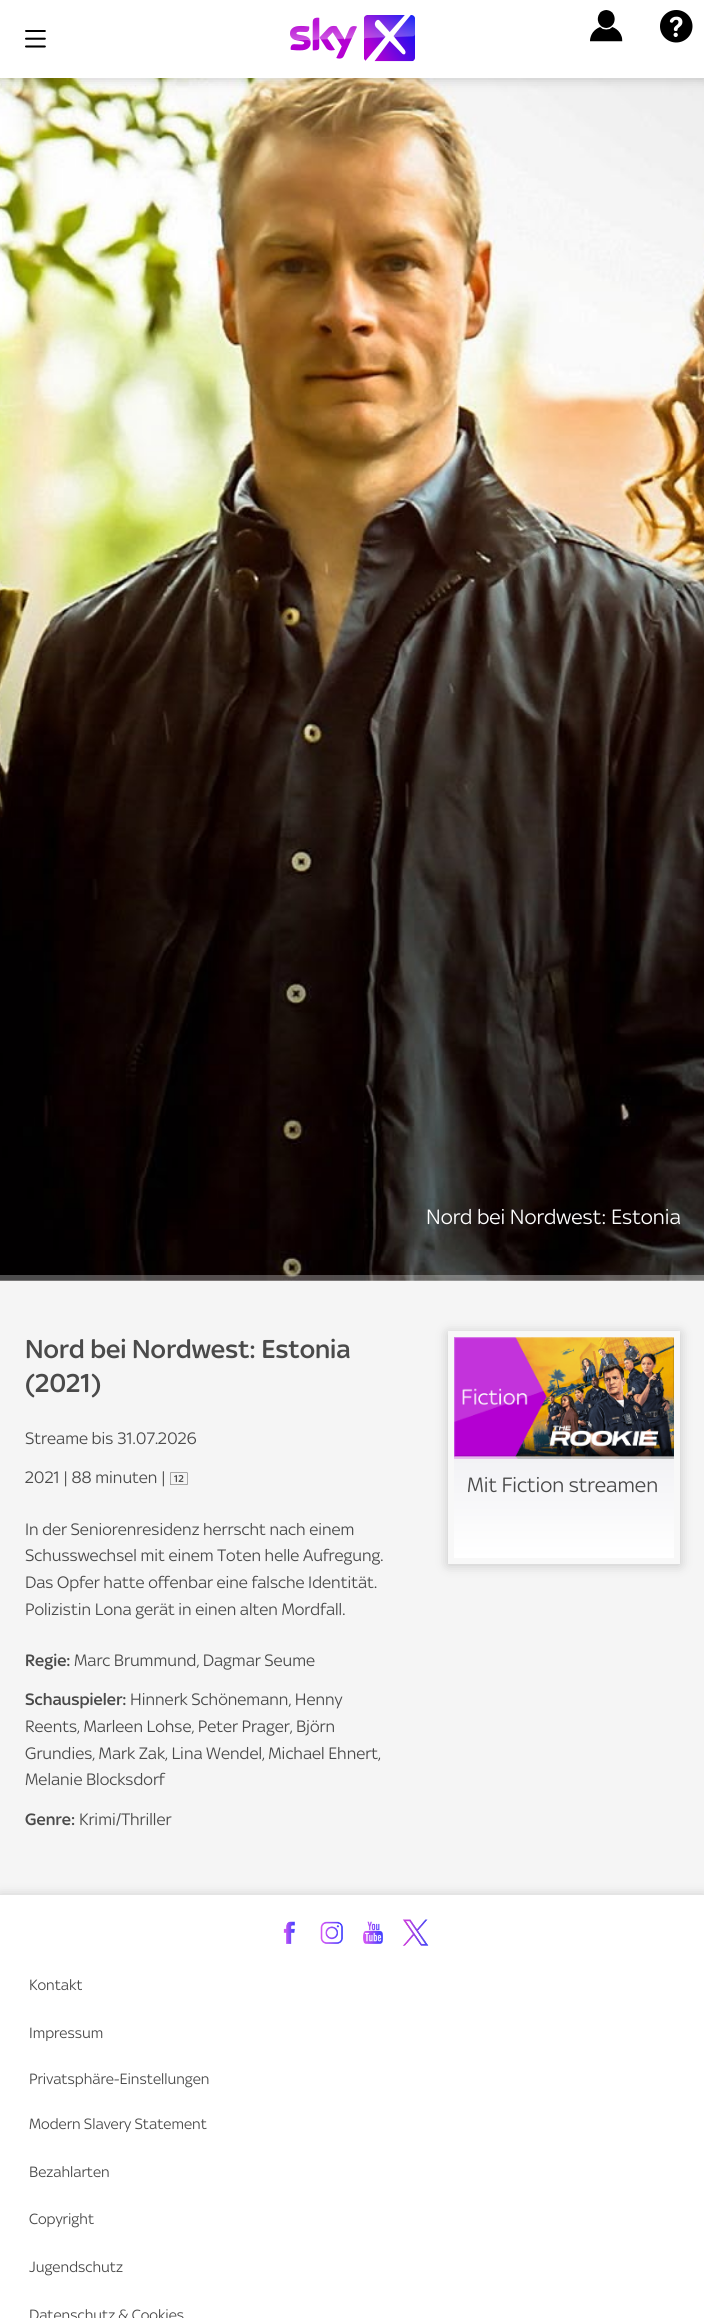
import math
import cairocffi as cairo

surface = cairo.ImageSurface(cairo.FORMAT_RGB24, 704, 2318)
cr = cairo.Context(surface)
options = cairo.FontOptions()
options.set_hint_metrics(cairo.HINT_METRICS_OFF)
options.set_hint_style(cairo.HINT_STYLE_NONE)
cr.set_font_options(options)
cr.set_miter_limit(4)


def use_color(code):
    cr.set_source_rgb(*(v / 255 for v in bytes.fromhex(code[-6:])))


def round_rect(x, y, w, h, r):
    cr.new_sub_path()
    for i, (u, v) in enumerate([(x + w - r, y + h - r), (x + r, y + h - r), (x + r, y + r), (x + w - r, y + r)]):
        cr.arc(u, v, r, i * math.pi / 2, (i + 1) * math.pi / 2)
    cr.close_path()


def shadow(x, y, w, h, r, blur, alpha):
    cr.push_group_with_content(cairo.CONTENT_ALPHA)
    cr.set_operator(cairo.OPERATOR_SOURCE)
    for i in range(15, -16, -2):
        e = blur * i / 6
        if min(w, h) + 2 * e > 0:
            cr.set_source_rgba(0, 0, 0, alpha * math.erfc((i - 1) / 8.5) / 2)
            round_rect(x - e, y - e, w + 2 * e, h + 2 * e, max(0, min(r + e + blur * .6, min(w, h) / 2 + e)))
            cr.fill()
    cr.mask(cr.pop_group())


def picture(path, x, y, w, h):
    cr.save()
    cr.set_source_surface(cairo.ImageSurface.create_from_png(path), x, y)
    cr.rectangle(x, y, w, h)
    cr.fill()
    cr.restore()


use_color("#f5f5f5")
cr.paint()
picture("img5.png", 0, 78, 704, 1203)
use_color("#000000")
shadow(0, 1, 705, 78, 0, 6, 0.2)
use_color("#ffffff")
cr.rectangle(0, 0, 704, 78)
cr.fill()
picture("img1.png", 290, 15, 125, 47)
picture("img2.png", 590, 10, 33, 32)
picture("img3.png", 660, 10, 33, 33)
picture("img4.png", 25, 30, 21, 18)
cr.select_font_face("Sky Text")
cr.set_font_size(22.25)
cr.move_to(426, 1224)
cr.show_text("Nord bei Nordwest: Estonia")
cr.set_source_rgba(1, 1, 1, 0.3)
cr.rectangle(0, 1275, 704, 6)
cr.fill()
cr.select_font_face("Sky Text Medium")
cr.set_font_size(27.75)
use_color("#4a4a4a")
cr.move_to(25, 1358)
cr.show_text("Nord bei Nordwest: Estonia")
cr.move_to(25, 1392)
cr.show_text("(2021)")
cr.select_font_face("Sky Text")
cr.set_font_size(17.75)
cr.move_to(25, 1444)
cr.show_text("Streame bis 31.07.2026")
cr.move_to(25, 1483)
cr.show_text("2021 | 88 minuten |")
picture("img6.png", 170, 1472, 18, 13)
cr.move_to(25, 1535)
cr.show_text("In der Seniorenresidenz herrscht nach einem")
cr.move_to(25, 1561)
cr.show_text("Schusswechsel mit einem Toten helle Aufregung.")
cr.move_to(25, 1588)
cr.show_text("Das Opfer hatte offenbar eine falsche Identität.")
cr.move_to(25, 1615)
cr.show_text("Polizistin Lona gerät in einen alten Mordfall.")
cr.select_font_face("Sky Text Medium")
cr.move_to(25, 1666)
cr.show_text("Regie:")
cr.select_font_face("Sky Text")
cr.move_to(74, 1666)
cr.show_text("Marc Brummund, Dagmar Seume")
cr.select_font_face("Sky Text Medium")
cr.move_to(25, 1705)
cr.show_text("Schauspieler:")
cr.select_font_face("Sky Text")
cr.move_to(130, 1705)
cr.show_text("Hinnerk Schönemann, Henny")
cr.move_to(25, 1732)
cr.show_text("Reents, Marleen Lohse, Peter Prager, Björn")
cr.move_to(25, 1759)
cr.show_text("Grundies, Mark Zak, Lina Wendel, Michael Ehnert,")
cr.move_to(25, 1785)
cr.show_text("Melanie Blocksdorf")
cr.select_font_face("Sky Text Medium")
cr.move_to(25, 1825)
cr.show_text("Genre:")
cr.select_font_face("Sky Text")
cr.move_to(79, 1825)
cr.show_text("Krimi/Thriller")
cr.save()
cr.set_fill_rule(cairo.FILL_RULE_EVEN_ODD)
cr.new_path()
cr.move_to(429, 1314)
cr.line_to(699, 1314)
cr.line_to(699, 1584)
cr.line_to(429, 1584)
cr.close_path()
cr.move_to(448, 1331)
cr.line_to(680, 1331)
cr.line_to(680, 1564)
cr.line_to(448, 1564)
cr.close_path()
cr.clip()
use_color("#000000")
shadow(448, 1333, 232, 232, 0, 6, 0.2)
cr.restore()
cr.set_source_rgba(1, 1, 1, 0.3)
cr.rectangle(448, 1331, 232, 233)
cr.fill()
picture("img7.png", 454, 1337, 220, 122)
gradient = cairo.LinearGradient(564, 1459, 564, 1558)
gradient.add_color_stop_rgba(0, 0.949, 0.949, 0.961, 1)
gradient.add_color_stop_rgba(1, 1, 1, 1, 1)
cr.set_source(gradient)
cr.rectangle(454, 1459, 220, 99)
cr.fill()
cr.set_font_size(22.25)
use_color("#4a4a4a")
cr.move_to(467, 1492)
cr.show_text("Mit Fiction streamen")
use_color("#000000")
shadow(0, 1896, 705, 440, 0, 6, 0.2)
use_color("#ffffff")
cr.rectangle(0, 1895, 704, 423)
cr.fill()
picture("img8.png", 283, 1921, 12, 23)
picture("img9.png", 320, 1921, 23, 23)
picture("img10.png", 363, 1921, 20, 23)
picture("img11.png", 402, 1919, 27, 27)
cr.set_font_size(16)
use_color("#4a4a4a")
cr.move_to(29, 1990)
cr.show_text("Kontakt")
cr.move_to(29, 2038)
cr.show_text("Impressum")
cr.move_to(29, 2084)
cr.show_text("Privatsphäre-Einstellungen")
cr.move_to(29, 2129)
cr.show_text("Modern Slavery Statement")
cr.move_to(29, 2177)
cr.show_text("Bezahlarten")
cr.move_to(29, 2224)
cr.show_text("Copyright")
cr.move_to(29, 2272)
cr.show_text("Jugendschutz")
cr.move_to(29, 2320)
cr.show_text("Datenschutz & Cookies")
surface.write_to_png("result.png")
